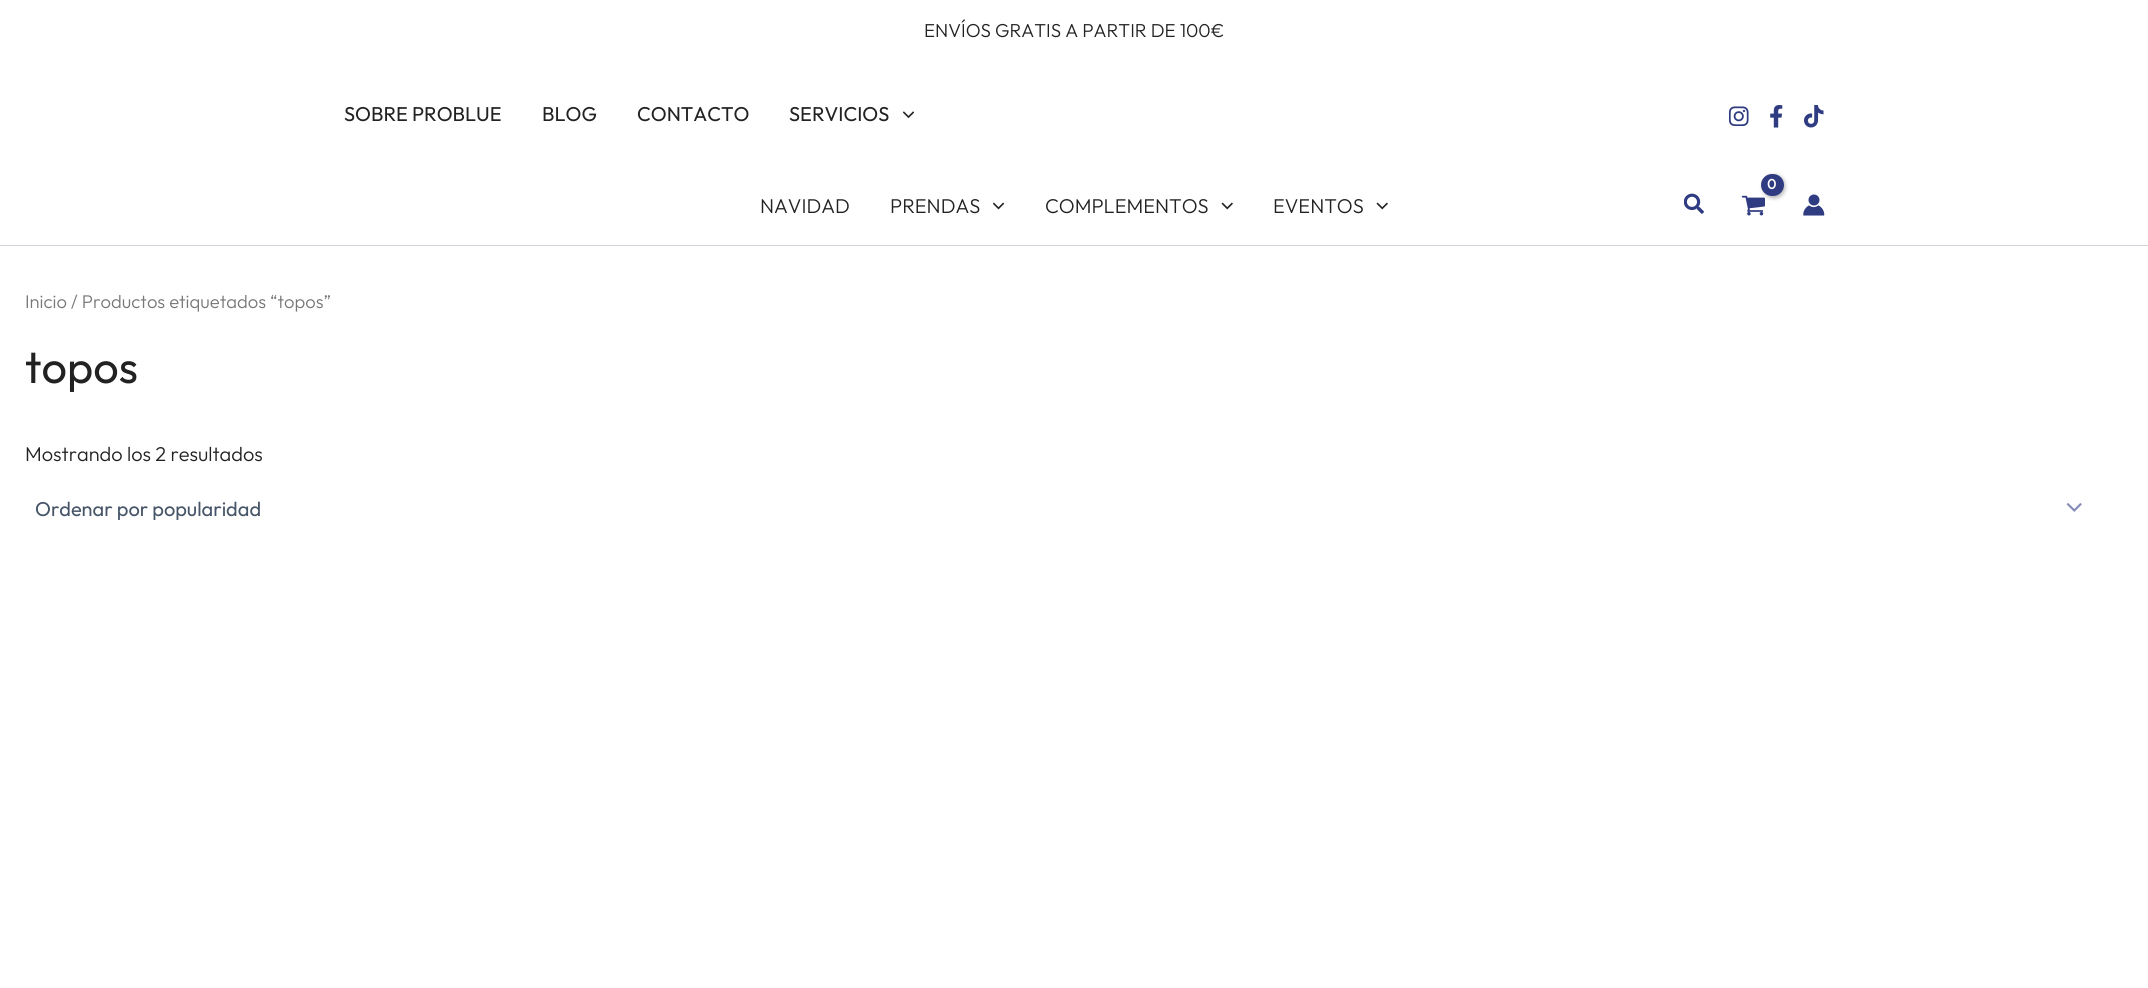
import math
import cairocffi as cairo

surface = cairo.ImageSurface(cairo.FORMAT_RGB24, 2148, 988)
cr = cairo.Context(surface)
options = cairo.FontOptions()
options.set_hint_metrics(cairo.HINT_METRICS_OFF)
options.set_hint_style(cairo.HINT_STYLE_NONE)
cr.set_font_options(options)
cr.set_miter_limit(4)


def use_color(code):
    cr.set_source_rgb(*(v / 255 for v in bytes.fromhex(code[-6:])))


def spaced_text(x, y, s, letter, word):
    cr.move_to(x, y)
    for ch in s:
        cr.show_text(ch)
        cr.rel_move_to(letter + word * (ch == ' '), 0)


def round_rect(x, y, w, h, r):
    cr.new_sub_path()
    for i, (u, v) in enumerate([(x + w - r, y + h - r), (x + r, y + h - r), (x + r, y + r), (x + w - r, y + r)]):
        cr.arc(u, v, r, i * math.pi / 2, (i + 1) * math.pi / 2)
    cr.close_path()


def shadow(x, y, w, h, r, blur, alpha):
    cr.push_group_with_content(cairo.CONTENT_ALPHA)
    cr.set_operator(cairo.OPERATOR_SOURCE)
    for i in range(15, -16, -2):
        e = blur * i / 6
        if min(w, h) + 2 * e > 0:
            cr.set_source_rgba(0, 0, 0, alpha * math.erfc((i - 1) / 8.5) / 2)
            round_rect(x - e, y - e, w + 2 * e, h + 2 * e, max(0, min(r + e + blur * .6, min(w, h) / 2 + e)))
            cr.fill()
    cr.mask(cr.pop_group())


def picture(path, x, y, w, h):
    cr.save()
    cr.set_source_surface(cairo.ImageSurface.create_from_png(path), x, y)
    cr.rectangle(x, y, w, h)
    cr.fill()
    cr.restore()


use_color("#ffffff")
cr.paint()
cr.select_font_face("Outfit Light")
cr.set_font_size(18.75)
use_color("#222222")
cr.move_to(924, 37)
cr.show_text("ENVÍOS GRATIS A PARTIR DE 100€")
cr.select_font_face("Outfit")
cr.set_font_size(20)
cr.move_to(344, 121)
cr.show_text("SOBRE PROBLUE")
cr.move_to(542, 121)
cr.show_text("BLOG")
cr.move_to(637, 121)
cr.show_text("CONTACTO")
cr.move_to(789, 121)
cr.show_text("SERVICIOS")
picture("img1.png", 903, 111, 11, 8)
picture("img2.png", 1728, 106, 21, 20)
picture("img3.png", 1770, 105, 13, 23)
picture("img4.png", 1804, 105, 20, 23)
use_color("#d1d5db")
cr.rectangle(0, 245, 2148, 1)
cr.fill()
picture("img5.png", 1741, 195, 24, 21)
use_color("#000000")
shadow(1763, 175, 22, 23, 11, 2, 0.3)
use_color("#303c82")
round_rect(1761, 174, 23, 22, 11)
cr.fill()
cr.select_font_face("Outfit", cairo.FONT_SLANT_NORMAL, cairo.FONT_WEIGHT_BOLD)
cr.set_font_size(14)
use_color("#ffffff")
spaced_text(1767, 189, "0", -1, 0)
picture("img6.png", 1684, 193, 20, 21)
picture("img7.png", 1803, 194, 22, 22)
cr.select_font_face("Outfit Light")
cr.set_font_size(20)
use_color("#222222")
cr.move_to(760, 213)
cr.show_text("NAVIDAD")
cr.move_to(890, 213)
cr.show_text("PRENDAS")
picture("img8.png", 993, 202, 12, 8)
cr.move_to(1045, 213)
cr.show_text("COMPLEMENTOS")
picture("img9.png", 1221, 202, 12, 8)
cr.move_to(1273, 213)
cr.show_text("EVENTOS")
picture("img9.png", 1376, 202, 12, 8)
cr.set_font_size(18.4)
use_color("#777777")
cr.move_to(25, 308)
cr.show_text("Inicio / Productos etiquetados “topos”")
cr.select_font_face("Outfit")
cr.set_font_size(45)
use_color("#222222")
cr.move_to(25, 383)
cr.show_text("topos")
cr.select_font_face("Outfit Light")
cr.set_font_size(20)
cr.move_to(25, 461)
cr.show_text("Mostrando los 2 resultados")
picture("img10.png", 2066, 503, 16, 9)
cr.select_font_face("Outfit")
use_color("#475569")
cr.move_to(35, 516)
cr.show_text("Ordenar por popularidad")
surface.write_to_png("result.png")
